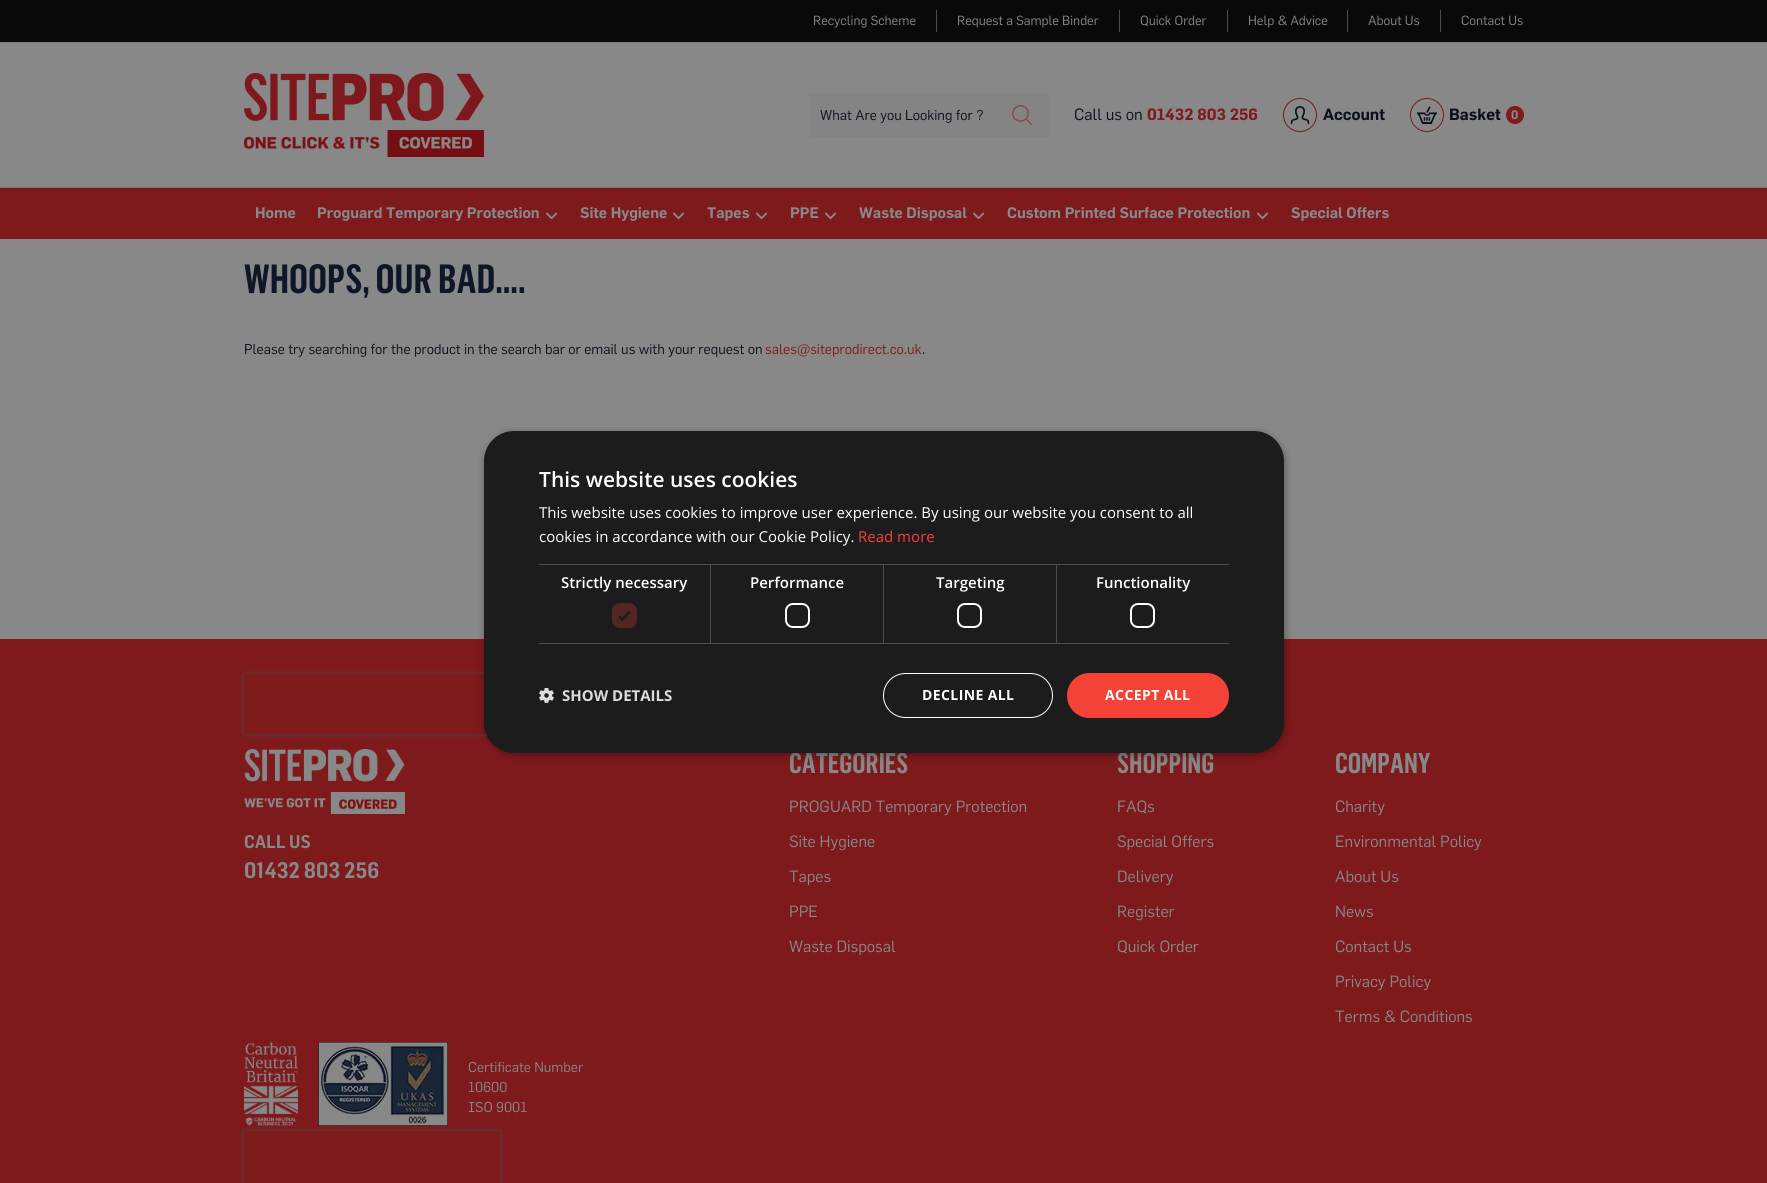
import math
import cairocffi as cairo

surface = cairo.ImageSurface(cairo.FORMAT_RGB24, 1767, 1183)
cr = cairo.Context(surface)
options = cairo.FontOptions()
options.set_hint_metrics(cairo.HINT_METRICS_OFF)
options.set_hint_style(cairo.HINT_STYLE_NONE)
cr.set_font_options(options)
cr.set_miter_limit(4)


def use_color(code):
    cr.set_source_rgb(*(v / 255 for v in bytes.fromhex(code[-6:])))


def spaced_text(x, y, s, letter, word):
    cr.move_to(x, y)
    for ch in s:
        cr.show_text(ch)
        cr.rel_move_to(letter + word * (ch == ' '), 0)


def round_rect(x, y, w, h, r):
    cr.new_sub_path()
    for i, (u, v) in enumerate([(x + w - r, y + h - r), (x + r, y + h - r), (x + r, y + r), (x + w - r, y + r)]):
        cr.arc(u, v, r, i * math.pi / 2, (i + 1) * math.pi / 2)
    cr.close_path()


def shadow(x, y, w, h, r, blur, alpha):
    cr.push_group_with_content(cairo.CONTENT_ALPHA)
    cr.set_operator(cairo.OPERATOR_SOURCE)
    for i in range(15, -16, -2):
        e = blur * i / 6
        if min(w, h) + 2 * e > 0:
            cr.set_source_rgba(0, 0, 0, alpha * math.erfc((i - 1) / 8.5) / 2)
            round_rect(x - e, y - e, w + 2 * e, h + 2 * e, max(0, min(r + e + blur * .6, min(w, h) / 2 + e)))
            cr.fill()
    cr.mask(cr.pop_group())


def picture(path, x, y, w, h):
    cr.save()
    cr.set_source_surface(cairo.ImageSurface.create_from_png(path), x, y)
    cr.rectangle(x, y, w, h)
    cr.fill()
    cr.restore()


use_color("#888888")
cr.paint()
use_color("#757575")
cr.rectangle(0, 187, 1767, 1)
cr.fill()
use_color("#090909")
cr.rectangle(0, 0, 1767, 42)
cr.fill()
use_color("#7d7d7d")
cr.rectangle(0, 42, 1767, 1)
cr.fill()
use_color("#4e4e4e")
cr.rectangle(936, 10, 1, 22)
cr.fill()
cr.select_font_face("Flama")
cr.set_font_size(13)
use_color("#888888")
cr.move_to(813, 25)
cr.show_text("Recycling Scheme")
use_color("#4e4e4e")
cr.rectangle(1119, 10, 1, 22)
cr.fill()
use_color("#888888")
cr.move_to(957, 25)
cr.show_text("Request a Sample Binder")
use_color("#4e4e4e")
cr.rectangle(1227, 10, 1, 22)
cr.fill()
use_color("#888888")
cr.move_to(1140, 25)
cr.show_text("Quick Order")
use_color("#4e4e4e")
cr.rectangle(1347, 10, 1, 22)
cr.fill()
use_color("#888888")
cr.move_to(1248, 25)
cr.show_text("Help & Advice")
use_color("#4e4e4e")
cr.rectangle(1440, 10, 1, 22)
cr.fill()
use_color("#888888")
cr.move_to(1368, 25)
cr.show_text("About Us")
cr.move_to(1461, 25)
cr.show_text("Contact Us")
picture("img1.png", 244, 73, 240, 84)
use_color("#848484")
cr.rectangle(809, 93, 240, 44)
cr.fill()
cr.set_font_size(14)
use_color("#0c101a")
cr.move_to(820, 120)
cr.show_text("What Are you Looking for ?")
picture("img2.png", 1012, 105, 20, 20)
cr.set_font_size(16)
cr.move_to(1074, 120)
cr.show_text("Call us on")
cr.select_font_face("Flama SemiBold")
use_color("#7e191c")
cr.move_to(1147, 120)
cr.show_text("01432 803 256")
cr.new_path()
cr.arc(1300, 115, 16.5, 0, 2 * math.pi)
cr.set_line_width(1)
cr.stroke()
picture("img3.png", 1290, 106, 20, 18)
use_color("#0c101a")
cr.move_to(1323, 120)
cr.show_text("Account")
cr.new_path()
cr.arc(1427, 115, 16.5, 0, 2 * math.pi)
use_color("#7e191c")
cr.stroke()
picture("img4.png", 1417, 106, 20, 18)
use_color("#0c101a")
cr.move_to(1449, 120)
cr.show_text("Basket")
use_color("#7e191c")
cr.new_path()
cr.arc(1515, 115, 9, 0, 2 * math.pi)
cr.fill()
cr.set_font_size(12)
use_color("#888888")
cr.move_to(1511, 119)
cr.show_text("0")
use_color("#7e191c")
cr.rectangle(0, 188, 1767, 51)
cr.fill()
cr.set_font_size(15)
use_color("#888888")
cr.move_to(255, 218)
cr.show_text("Home")
cr.move_to(317, 218)
cr.show_text("Proguard Temporary Protection")
picture("img5.png", 546, 212, 12, 8)
cr.move_to(580, 218)
cr.show_text("Site Hygiene")
picture("img5.png", 673, 212, 12, 8)
cr.move_to(707, 218)
cr.show_text("Tapes")
picture("img5.png", 756, 212, 12, 8)
cr.move_to(790, 218)
cr.show_text("PPE")
picture("img5.png", 825, 212, 12, 8)
cr.move_to(859, 218)
cr.show_text("Waste Disposal")
picture("img5.png", 973, 212, 12, 8)
cr.move_to(1007, 218)
cr.show_text("Custom Printed Surface Protection")
picture("img5.png", 1257, 212, 12, 8)
cr.move_to(1291, 218)
cr.show_text("Special Offers")
cr.select_font_face("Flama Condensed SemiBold")
cr.set_font_size(40)
use_color("#0f1628")
cr.move_to(244, 293)
cr.show_text("WHOOPS, OUR BAD....")
cr.select_font_face("Flama")
cr.set_font_size(14)
use_color("#0c101a")
cr.move_to(244, 354)
cr.show_text("Please try searching for the product in the search bar or email us with your request on")
use_color("#7e191c")
cr.move_to(765, 354)
cr.show_text("sales@siteprodirect.co.uk")
use_color("#0c101a")
cr.move_to(922, 354)
cr.show_text(".")
use_color("#7e191c")
cr.rectangle(0, 639, 1767, 544)
cr.fill()
cr.save()
cr.set_fill_rule(cairo.FILL_RULE_EVEN_ODD)
cr.new_path()
cr.move_to(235, 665)
cr.line_to(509, 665)
cr.line_to(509, 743)
cr.line_to(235, 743)
cr.close_path()
cr.move_to(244, 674)
cr.line_to(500, 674)
cr.line_to(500, 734)
cr.line_to(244, 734)
cr.close_path()
cr.clip()
use_color("#494949")
shadow(244, 674, 256, 60, 0, 2.5, 1)
cr.restore()
picture("img6.png", 244, 749, 161, 65)
picture("img7.png", 244, 834, 66, 15)
picture("img8.png", 245, 862, 134, 17)
cr.select_font_face("Flama Condensed SemiBold")
cr.set_font_size(28)
use_color("#888888")
cr.move_to(789, 773)
cr.show_text("CATEGORIES")
cr.select_font_face("Flama")
cr.set_font_size(16)
cr.move_to(789, 812)
cr.show_text("PROGUARD Temporary Protection")
cr.move_to(789, 847)
cr.show_text("Site Hygiene")
cr.move_to(789, 882)
cr.show_text("Tapes")
cr.move_to(789, 917)
cr.show_text("PPE")
cr.move_to(789, 952)
cr.show_text("Waste Disposal")
cr.select_font_face("Flama Condensed SemiBold")
cr.set_font_size(28)
cr.move_to(1117, 773)
cr.show_text("SHOPPING")
cr.select_font_face("Flama")
cr.set_font_size(16)
cr.move_to(1117, 812)
cr.show_text("FAQs")
cr.move_to(1117, 847)
cr.show_text("Special Offers")
cr.move_to(1117, 882)
cr.show_text("Delivery")
cr.move_to(1117, 917)
cr.show_text("Register")
cr.move_to(1117, 952)
cr.show_text("Quick Order")
cr.select_font_face("Flama Condensed SemiBold")
cr.set_font_size(28)
cr.move_to(1335, 773)
cr.show_text("COMPANY")
cr.select_font_face("Flama")
cr.set_font_size(16)
cr.move_to(1335, 812)
cr.show_text("Charity")
cr.move_to(1335, 847)
cr.show_text("Environmental Policy")
cr.move_to(1335, 882)
cr.show_text("About Us")
cr.move_to(1335, 917)
cr.show_text("News")
cr.move_to(1335, 952)
cr.show_text("Contact Us")
cr.move_to(1335, 987)
cr.show_text("Privacy Policy")
cr.move_to(1335, 1022)
cr.show_text("Terms & Conditions")
cr.save()
cr.set_fill_rule(cairo.FILL_RULE_EVEN_ODD)
cr.new_path()
cr.move_to(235, 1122)
cr.line_to(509, 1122)
cr.line_to(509, 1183)
cr.line_to(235, 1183)
cr.close_path()
cr.move_to(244, 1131)
cr.line_to(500, 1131)
cr.line_to(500, 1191)
cr.line_to(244, 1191)
cr.close_path()
cr.clip()
use_color("#494949")
shadow(244, 1131, 256, 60, 0, 2.5, 1)
cr.restore()
picture("img9.png", 244, 1042, 54, 84)
picture("img10.png", 318, 1042, 130, 84)
cr.set_font_size(14)
cr.move_to(468, 1072)
cr.show_text("Certificate Number")
cr.move_to(468, 1092)
cr.show_text("10600")
cr.move_to(468, 1112)
cr.show_text("ISO 9001")
use_color("#000000")
shadow(485, 433, 800, 322, 30, 4, 0.35)
use_color("#1c1c1c")
round_rect(484, 431, 800, 322, 30)
cr.fill()
cr.select_font_face("Open Sans SemiBold")
cr.set_font_size(21)
use_color("#ffffff")
cr.move_to(539, 487)
cr.show_text("This website uses cookies")
cr.select_font_face("Open Sans")
cr.set_font_size(15)
cr.move_to(539, 518)
cr.show_text("This website uses cookies to improve user experience. By using our website you consent to all")
cr.move_to(539, 542)
cr.show_text("cookies in accordance with our Cookie Policy.")
use_color("#f44336")
cr.move_to(858, 542)
cr.show_text("Read more")
use_color("#4d4d4d")
cr.rectangle(539, 564, 690, 1)
cr.fill()
cr.rectangle(710, 564, 1, 80)
cr.fill()
cr.rectangle(539, 643, 172, 1)
cr.fill()
cr.select_font_face("Open Sans SemiBold")
use_color("#ffffff")
cr.move_to(561, 588)
cr.show_text("Strictly necessary")
use_color("#542623")
round_rect(612, 603, 25, 25, 8)
cr.fill()
cr.new_path()
cr.move_to(619, 616)
cr.line_to(622.5, 619.5)
cr.line_to(630, 611.5)
use_color("#1c1c1c")
cr.set_line_width(2.6)
cr.stroke()
use_color("#4d4d4d")
cr.rectangle(883, 564, 1, 80)
cr.fill()
cr.rectangle(711, 643, 173, 1)
cr.fill()
use_color("#ffffff")
cr.move_to(750, 588)
cr.show_text("Performance")
round_rect(786, 604, 23, 23, 7)
cr.set_line_width(2)
cr.stroke()
use_color("#4d4d4d")
cr.rectangle(1056, 564, 1, 80)
cr.fill()
cr.rectangle(884, 643, 345, 1)
cr.fill()
use_color("#ffffff")
cr.move_to(936, 588)
cr.show_text("Targeting")
round_rect(958, 604, 23, 23, 7)
cr.stroke()
cr.move_to(1096, 588)
cr.show_text("Functionality")
round_rect(1131, 604, 23, 23, 7)
cr.stroke()
picture("img11.png", 539, 688, 15, 15)
cr.select_font_face("Open Sans", cairo.FONT_SLANT_NORMAL, cairo.FONT_WEIGHT_BOLD)
use_color("#dddddd")
cr.move_to(562, 701)
cr.show_text("SHOW DETAILS")
round_rect(883.5, 673.5, 169, 44, 22)
use_color("#ffffff")
cr.set_line_width(1)
cr.stroke()
cr.set_font_size(14)
spaced_text(922, 700, "DECLINE ALL", 0.4, 0)
use_color("#f44336")
round_rect(1067, 673, 162, 45, 22.5)
cr.fill()
use_color("#ffffff")
spaced_text(1105, 700, "ACCEPT ALL", 0.4, 0)
surface.write_to_png("result.png")
